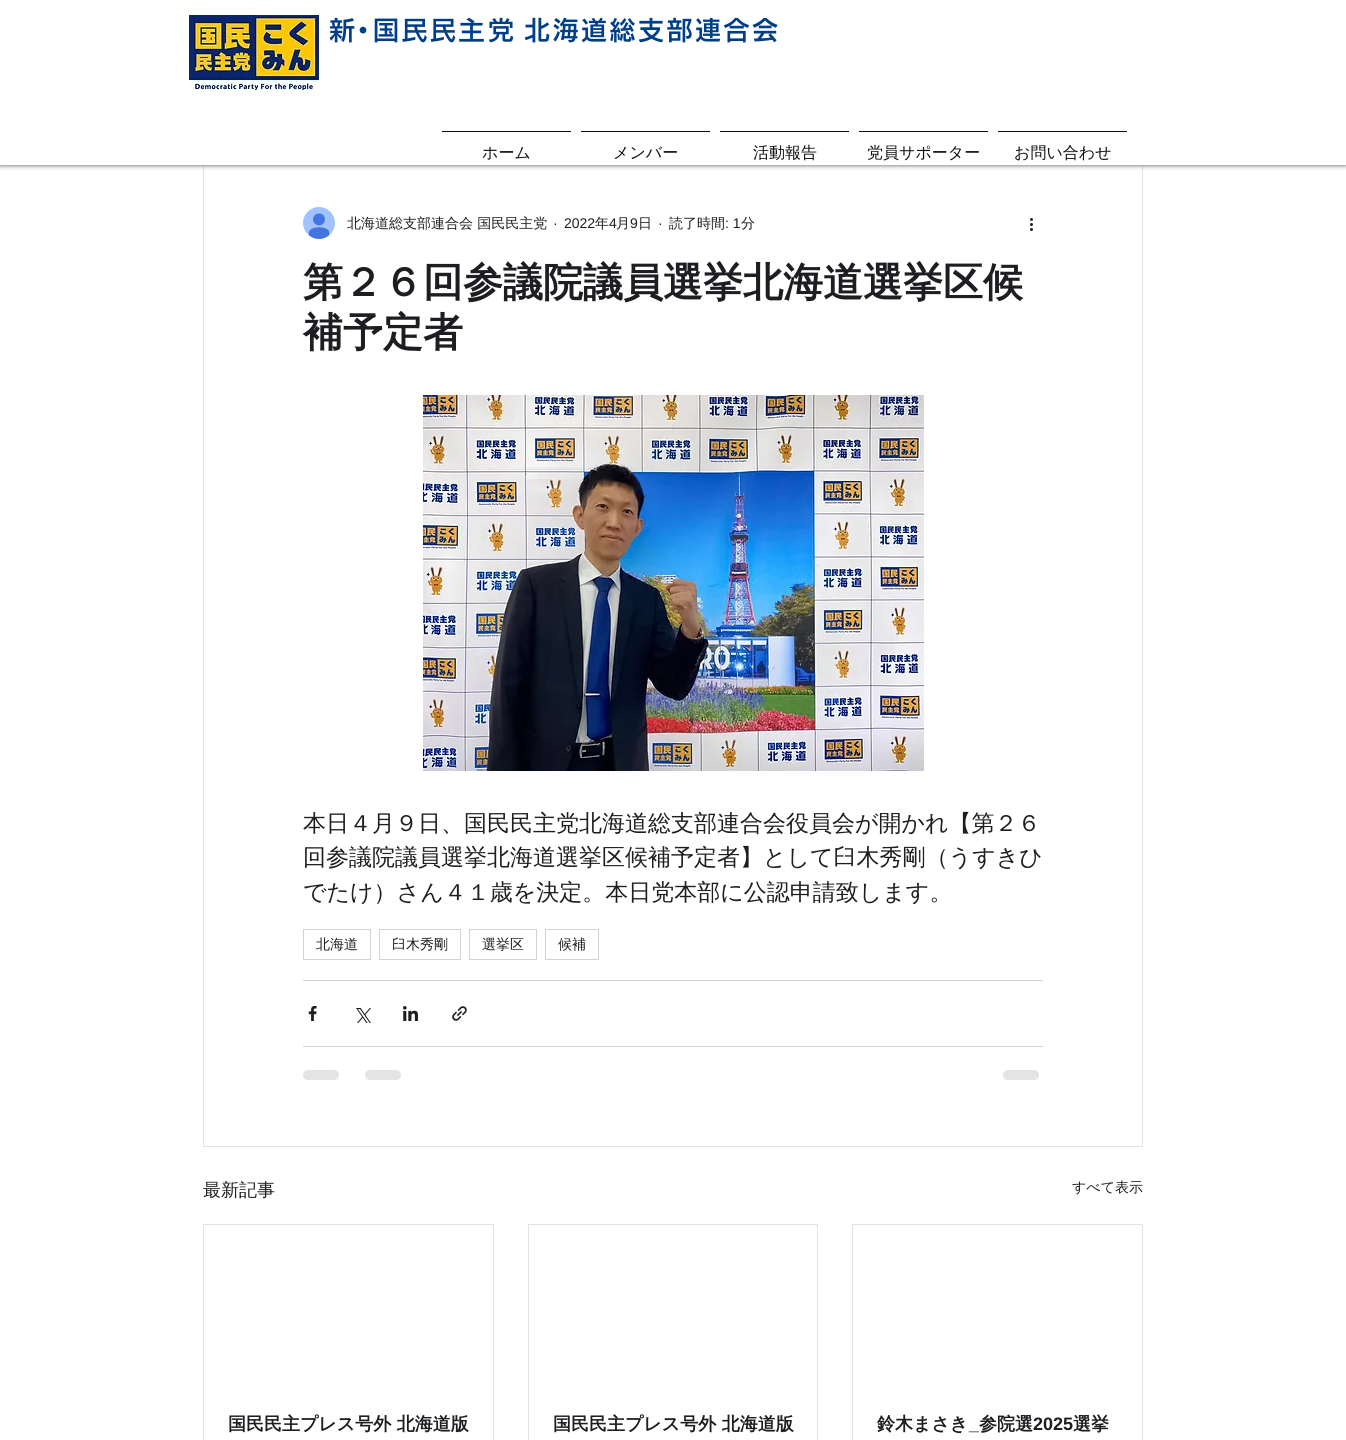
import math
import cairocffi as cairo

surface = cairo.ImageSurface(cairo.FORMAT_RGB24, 1346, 1440)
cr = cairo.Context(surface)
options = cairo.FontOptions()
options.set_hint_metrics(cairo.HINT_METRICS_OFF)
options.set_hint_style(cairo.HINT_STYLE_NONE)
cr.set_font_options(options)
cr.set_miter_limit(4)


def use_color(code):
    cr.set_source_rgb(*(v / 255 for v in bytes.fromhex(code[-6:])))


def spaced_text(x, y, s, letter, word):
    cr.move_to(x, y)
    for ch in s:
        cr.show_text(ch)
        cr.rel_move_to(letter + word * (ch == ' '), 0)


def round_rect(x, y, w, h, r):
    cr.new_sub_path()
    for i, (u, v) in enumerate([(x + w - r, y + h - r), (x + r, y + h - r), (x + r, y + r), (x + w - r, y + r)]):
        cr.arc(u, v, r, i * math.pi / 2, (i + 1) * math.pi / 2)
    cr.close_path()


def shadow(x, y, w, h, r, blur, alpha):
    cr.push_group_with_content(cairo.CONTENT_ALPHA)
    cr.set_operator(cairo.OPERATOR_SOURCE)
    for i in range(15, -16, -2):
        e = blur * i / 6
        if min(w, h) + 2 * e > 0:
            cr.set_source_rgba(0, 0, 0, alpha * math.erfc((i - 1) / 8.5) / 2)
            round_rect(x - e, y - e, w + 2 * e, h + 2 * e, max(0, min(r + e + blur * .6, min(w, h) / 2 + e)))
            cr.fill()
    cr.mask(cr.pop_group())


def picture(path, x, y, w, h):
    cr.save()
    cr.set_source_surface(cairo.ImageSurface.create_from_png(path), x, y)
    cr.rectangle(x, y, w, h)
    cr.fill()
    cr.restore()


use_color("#ffffff")
cr.paint()
cr.rectangle(203.5, 146.5, 939, 1000)
use_color("#e0e2e8")
cr.set_line_width(1)
cr.stroke()
use_color("#000000")
shadow(0, 0, 1346, 165, 0, 2.5, 0.7)
use_color("#ffffff")
cr.rectangle(0, 0, 1346, 165)
cr.fill()
picture("img1.png", 189, 15, 130, 75)
cr.select_font_face("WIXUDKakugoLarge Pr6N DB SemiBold")
cr.set_font_size(26)
use_color("#003f88")
spaced_text(329, 40, "新", -5, 0)
spaced_text(350, 40, "・", -3, 0)
spaced_text(373, 40, "国民民主", 2.5, 0)
spaced_text(488, 40, "党", 10, 0)
spaced_text(524, 40, "北海道総支部連合会", 2.5, 0)
use_color("#0f0f0f")
cr.rectangle(442, 131, 129, 1)
cr.fill()
cr.select_font_face("WenQuanYi Zen Hei Medium")
cr.set_font_size(16)
cr.move_to(482, 158)
cr.show_text("ホーム")
cr.rectangle(581, 131, 129, 1)
cr.fill()
cr.move_to(613, 158)
cr.show_text("メンバー")
cr.rectangle(720, 131, 129, 1)
cr.fill()
cr.move_to(753, 158)
cr.show_text("活動報告")
cr.rectangle(859, 131, 129, 1)
cr.fill()
cr.move_to(867, 158)
cr.show_text("党員サポーター")
cr.rectangle(998, 131, 129, 1)
cr.fill()
cr.move_to(1014, 158)
cr.show_text("お問い合わせ")
picture("img2.png", 303, 207, 32, 32)
cr.set_font_size(14)
use_color("#1d1e21")
cr.move_to(347, 228)
cr.show_text("北海道総支部連合会 国民民主党")
cr.select_font_face("Liberation Sans")
cr.move_to(553, 228)
cr.show_text("·")
cr.move_to(564, 228)
cr.show_text("2022")
cr.select_font_face("WenQuanYi Zen Hei Medium")
cr.move_to(595, 228)
cr.show_text("年")
cr.select_font_face("Liberation Sans")
cr.move_to(609, 228)
cr.show_text("4")
cr.select_font_face("WenQuanYi Zen Hei Medium")
cr.move_to(616, 228)
cr.show_text("月")
cr.select_font_face("Liberation Sans")
cr.move_to(630, 228)
cr.show_text("9")
cr.select_font_face("WenQuanYi Zen Hei Medium")
cr.move_to(638, 228)
cr.show_text("日")
cr.select_font_face("Liberation Sans")
cr.move_to(658, 228)
cr.show_text("·")
cr.select_font_face("WenQuanYi Zen Hei Medium")
cr.move_to(669, 228)
cr.show_text("読了時間")
cr.select_font_face("Liberation Sans")
cr.move_to(725, 228)
cr.show_text(": 1")
cr.select_font_face("WenQuanYi Zen Hei Medium")
cr.move_to(741, 228)
cr.show_text("分")
picture("img3.png", 1030, 218, 3, 13)
cr.select_font_face("WenQuanYi Zen Hei", cairo.FONT_SLANT_NORMAL, cairo.FONT_WEIGHT_BOLD)
cr.set_font_size(40)
cr.move_to(303, 296)
cr.show_text("第２６回参議院議員選挙北海道選挙区候")
cr.move_to(303, 346)
cr.show_text("補予定者")
picture("img4.png", 423, 395, 501, 376)
cr.select_font_face("WenQuanYi Zen Hei Medium")
cr.set_font_size(23)
cr.move_to(303, 831)
cr.show_text("本日４月９日、国民民主党北海道総支部連合会役員会が開かれ【第２６")
cr.move_to(303, 865)
cr.show_text("回参議院議員選挙北海道選挙区候補予定者】として臼木秀剛（うすきひ")
cr.move_to(303, 900)
cr.show_text("でたけ）さん４１歳を決定。本日党本部に公認申請致します。")
cr.rectangle(303.5, 929.5, 67, 30)
use_color("#d2d2d3")
cr.stroke()
cr.set_font_size(14)
use_color("#1d1e21")
cr.move_to(316, 949)
cr.show_text("北海道")
cr.rectangle(379.5, 929.5, 81, 30)
use_color("#d2d2d3")
cr.stroke()
use_color("#1d1e21")
cr.move_to(392, 949)
cr.show_text("臼木秀剛")
cr.rectangle(469.5, 929.5, 67, 30)
use_color("#d2d2d3")
cr.stroke()
use_color("#1d1e21")
cr.move_to(482, 949)
cr.show_text("選挙区")
cr.rectangle(545.5, 929.5, 53, 30)
use_color("#d2d2d3")
cr.stroke()
use_color("#1d1e21")
cr.move_to(558, 949)
cr.show_text("候補")
use_color("#d2d2d3")
cr.rectangle(303, 980, 740, 1)
cr.fill()
picture("img5.png", 308, 1006, 9, 15)
picture("img6.png", 356, 1008, 15, 15)
picture("img7.png", 403, 1006, 15, 15)
picture("img8.png", 452, 1006, 15, 15)
cr.rectangle(303, 1046, 740, 1)
cr.fill()
use_color("#e4e4e4")
round_rect(303, 1070, 36, 10, 5)
cr.fill()
round_rect(365, 1070, 36, 10, 5)
cr.fill()
round_rect(1003, 1070, 36, 10, 5)
cr.fill()
cr.set_font_size(18)
use_color("#1d1e21")
cr.move_to(203, 1196)
cr.show_text("最新記事")
cr.set_font_size(14)
cr.move_to(1072, 1192)
cr.show_text("すべて表示")
cr.rectangle(203.5, 1224.5, 290, 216)
use_color("#e0e2e8")
cr.stroke()
cr.select_font_face("WenQuanYi Zen Hei", cairo.FONT_SLANT_NORMAL, cairo.FONT_WEIGHT_BOLD)
cr.set_font_size(18)
use_color("#1d1e21")
cr.move_to(228, 1430)
cr.show_text("国民民主プレス号外 北海道版")
cr.rectangle(528.5, 1224.5, 289, 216)
use_color("#e0e2e8")
cr.stroke()
use_color("#1d1e21")
cr.move_to(553, 1430)
cr.show_text("国民民主プレス号外 北海道版")
cr.rectangle(852.5, 1224.5, 290, 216)
use_color("#e0e2e8")
cr.stroke()
use_color("#1d1e21")
cr.move_to(877, 1430)
cr.show_text("鈴木まさき")
cr.move_to(979, 1430)
cr.show_text("参院選")
cr.select_font_face("Liberation Sans", cairo.FONT_SLANT_NORMAL, cairo.FONT_WEIGHT_BOLD)
cr.move_to(1033, 1430)
cr.show_text("2025")
cr.select_font_face("WenQuanYi Zen Hei", cairo.FONT_SLANT_NORMAL, cairo.FONT_WEIGHT_BOLD)
cr.move_to(1073, 1430)
cr.show_text("選挙")
cr.select_font_face("Liberation Sans", cairo.FONT_SLANT_NORMAL, cairo.FONT_WEIGHT_BOLD)
cr.move_to(969, 1430)
cr.show_text("_")
surface.write_to_png("result.png")
